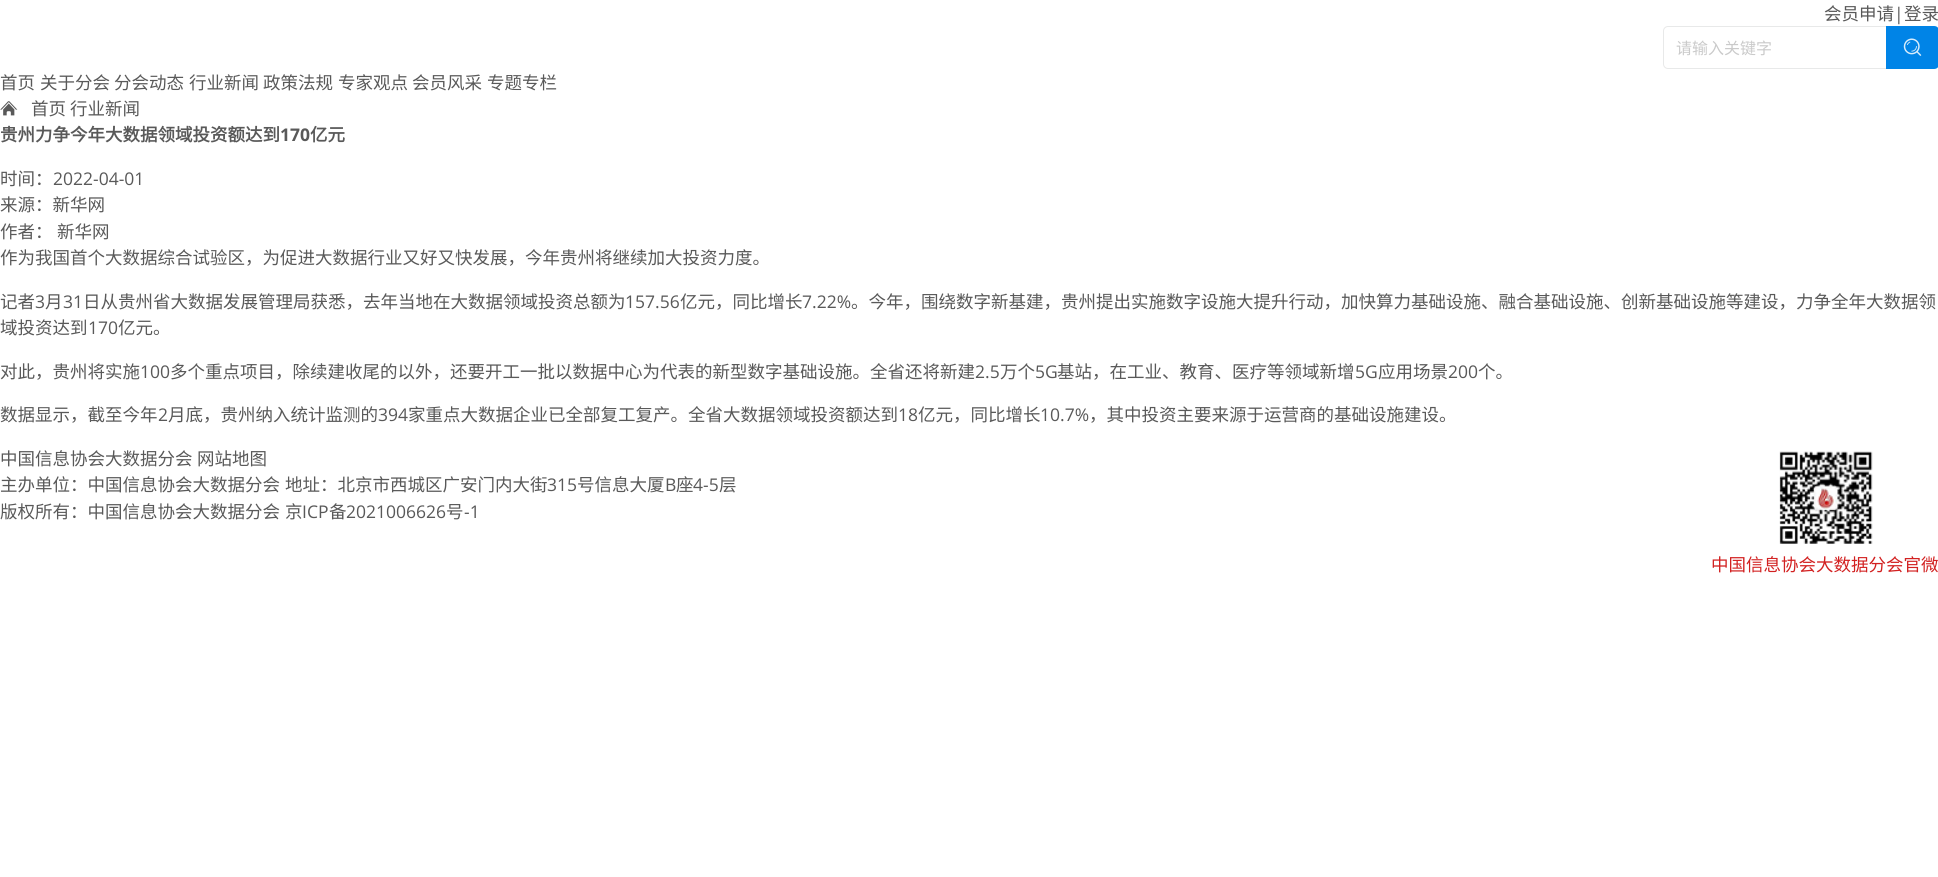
import math
import cairocffi as cairo

surface = cairo.ImageSurface(cairo.FORMAT_RGB24, 1938, 877)
cr = cairo.Context(surface)
options = cairo.FontOptions()
options.set_hint_metrics(cairo.HINT_METRICS_OFF)
options.set_hint_style(cairo.HINT_STYLE_NONE)
cr.set_font_options(options)
cr.set_miter_limit(4)


def use_color(code):
    cr.set_source_rgb(*(v / 255 for v in bytes.fromhex(code[-6:])))


def picture(path, x, y, w, h):
    cr.save()
    cr.set_source_surface(cairo.ImageSurface.create_from_png(path), x, y)
    cr.rectangle(x, y, w, h)
    cr.fill()
    cr.restore()


use_color("#ffffff")
cr.paint()
cr.select_font_face("Noto Sans CJK SC")
cr.set_font_size(17.5)
use_color("#595959")
cr.move_to(1824, 20)
cr.show_text("会员申请")
cr.select_font_face("Open Sans")
cr.move_to(1894, 20)
cr.show_text("|")
cr.select_font_face("Noto Sans CJK SC")
cr.move_to(1904, 20)
cr.show_text("登录")
cr.new_path()
cr.move_to(1668, 26.5)
cr.line_to(1887.5, 26.5)
cr.line_to(1887.5, 68.5)
cr.line_to(1668, 68.5)
cr.curve_to(1665.5, 68.5, 1663.5, 66.5, 1663.5, 64)
cr.line_to(1663.5, 31)
cr.curve_to(1663.5, 28.5, 1665.5, 26.5, 1668, 26.5)
cr.close_path()
use_color("#e8e9e9")
cr.set_line_width(1)
cr.stroke()
cr.set_font_size(16)
use_color("#cacaca")
cr.move_to(1676, 54)
cr.show_text("请输入关键字")
use_color("#0084e7")
cr.new_path()
cr.move_to(1886, 26)
cr.line_to(1934, 26)
cr.curve_to(1937, 26, 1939, 28, 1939, 31)
cr.line_to(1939, 64)
cr.curve_to(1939, 67, 1937, 69, 1934, 69)
cr.line_to(1886, 69)
cr.close_path()
cr.fill()
picture("img1.png", 1903, 38, 19, 18)
cr.set_font_size(17.5)
use_color("#595959")
cr.move_to(0, 89)
cr.show_text("首页")
cr.move_to(40, 89)
cr.show_text("关于分会")
cr.move_to(114, 89)
cr.show_text("分会动态")
cr.move_to(189, 89)
cr.show_text("行业新闻")
cr.move_to(263, 89)
cr.show_text("政策法规")
cr.move_to(338, 89)
cr.show_text("专家观点")
cr.move_to(412, 89)
cr.show_text("会员风采")
cr.move_to(487, 89)
cr.show_text("专题专栏")
picture("img2.png", 0, 101, 18, 15)
cr.move_to(31, 115)
cr.show_text("首页")
cr.move_to(70, 115)
cr.show_text("行业新闻")
cr.select_font_face("Noto Sans CJK SC", cairo.FONT_SLANT_NORMAL, cairo.FONT_WEIGHT_BOLD)
cr.move_to(0, 141)
cr.show_text("贵州力争今年大数据领域投资额达到")
cr.select_font_face("Open Sans", cairo.FONT_SLANT_NORMAL, cairo.FONT_WEIGHT_BOLD)
cr.move_to(280, 141)
cr.show_text("170")
cr.select_font_face("Noto Sans CJK SC", cairo.FONT_SLANT_NORMAL, cairo.FONT_WEIGHT_BOLD)
cr.move_to(310, 141)
cr.show_text("亿元")
cr.select_font_face("Noto Sans CJK SC")
cr.move_to(0, 185)
cr.show_text("时间：")
cr.select_font_face("Open Sans")
cr.move_to(53, 185)
cr.show_text("2022-04-01")
cr.select_font_face("Noto Sans CJK SC")
cr.move_to(0, 211)
cr.show_text("来源：新华网")
cr.move_to(0, 238)
cr.show_text("作者：")
cr.move_to(57, 238)
cr.show_text("新华网")
cr.move_to(0, 264)
cr.show_text("作为我国首个大数据综合试验区，为促进大数据行业又好又快发展，今年贵州将继续加大投资力度。")
cr.move_to(0, 308)
cr.show_text("记者")
cr.select_font_face("Open Sans")
cr.move_to(35, 308)
cr.show_text("3")
cr.select_font_face("Noto Sans CJK SC")
cr.move_to(45, 308)
cr.show_text("月")
cr.select_font_face("Open Sans")
cr.move_to(63, 308)
cr.show_text("31")
cr.select_font_face("Noto Sans CJK SC")
cr.move_to(83, 308)
cr.show_text("日从贵州省大数据发展管理局获悉，去年当地在大数据领域投资总额为")
cr.select_font_face("Open Sans")
cr.move_to(625, 308)
cr.show_text("157.56")
cr.select_font_face("Noto Sans CJK SC")
cr.move_to(680, 308)
cr.show_text("亿元，同比增长")
cr.select_font_face("Open Sans")
cr.move_to(802, 308)
cr.show_text("7.22%")
cr.select_font_face("Noto Sans CJK SC")
cr.move_to(851, 308)
cr.show_text("。今年，围绕数字新基建，贵州提出实施数字设施大提升行动，加快算力基础设施、融合基础设施、创新基础设施等建设，力争全年大数据领")
cr.move_to(0, 334)
cr.show_text("域投资达到")
cr.select_font_face("Open Sans")
cr.move_to(88, 334)
cr.show_text("170")
cr.select_font_face("Noto Sans CJK SC")
cr.move_to(118, 334)
cr.show_text("亿元。")
cr.move_to(0, 378)
cr.show_text("对此，贵州将实施")
cr.select_font_face("Open Sans")
cr.move_to(140, 378)
cr.show_text("100")
cr.select_font_face("Noto Sans CJK SC")
cr.move_to(170, 378)
cr.show_text("多个重点项目，除续建收尾的以外，还要开工一批以数据中心为代表的新型数字基础设施。全省还将新建")
cr.select_font_face("Open Sans")
cr.move_to(975, 378)
cr.show_text("2.5")
cr.select_font_face("Noto Sans CJK SC")
cr.move_to(1000, 378)
cr.show_text("万个")
cr.select_font_face("Open Sans")
cr.move_to(1035, 378)
cr.show_text("5G")
cr.select_font_face("Noto Sans CJK SC")
cr.move_to(1057, 378)
cr.show_text("基站，在工业、教育、医疗等领域新增")
cr.select_font_face("Open Sans")
cr.move_to(1355, 378)
cr.show_text("5G")
cr.select_font_face("Noto Sans CJK SC")
cr.move_to(1378, 378)
cr.show_text("应用场景")
cr.select_font_face("Open Sans")
cr.move_to(1448, 378)
cr.show_text("200")
cr.select_font_face("Noto Sans CJK SC")
cr.move_to(1478, 378)
cr.show_text("个。")
cr.move_to(0, 421)
cr.show_text("数据显示，截至今年")
cr.select_font_face("Open Sans")
cr.move_to(158, 421)
cr.show_text("2")
cr.select_font_face("Noto Sans CJK SC")
cr.move_to(168, 421)
cr.show_text("月底，贵州纳入统计监测的")
cr.select_font_face("Open Sans")
cr.move_to(378, 421)
cr.show_text("394")
cr.select_font_face("Noto Sans CJK SC")
cr.move_to(408, 421)
cr.show_text("家重点大数据企业已全部复工复产。全省大数据领域投资额达到")
cr.select_font_face("Open Sans")
cr.move_to(898, 421)
cr.show_text("18")
cr.select_font_face("Noto Sans CJK SC")
cr.move_to(918, 421)
cr.show_text("亿元，同比增长")
cr.select_font_face("Open Sans")
cr.move_to(1040, 421)
cr.show_text("10.7%")
cr.select_font_face("Noto Sans CJK SC")
cr.move_to(1089, 421)
cr.show_text("，其中投资主要来源于运营商的基础设施建设。")
cr.move_to(0, 465)
cr.show_text("中国信息协会大数据分会")
cr.move_to(197, 465)
cr.show_text("网站地图")
cr.move_to(0, 491)
cr.show_text("主办单位：中国信息协会大数据分会")
cr.move_to(285, 491)
cr.show_text("地址：北京市西城区广安门内大街")
cr.select_font_face("Open Sans")
cr.move_to(547, 491)
cr.show_text("315")
cr.select_font_face("Noto Sans CJK SC")
cr.move_to(577, 491)
cr.show_text("号信息大厦")
cr.select_font_face("Open Sans")
cr.move_to(665, 491)
cr.show_text("B")
cr.select_font_face("Noto Sans CJK SC")
cr.move_to(676, 491)
cr.show_text("座")
cr.select_font_face("Open Sans")
cr.move_to(693, 491)
cr.show_text("4-5")
cr.select_font_face("Noto Sans CJK SC")
cr.move_to(719, 491)
cr.show_text("层")
cr.move_to(0, 518)
cr.show_text("版权所有：中国信息协会大数据分会")
cr.move_to(285, 518)
cr.show_text("京")
cr.select_font_face("Open Sans")
cr.move_to(302, 518)
cr.show_text("ICP")
cr.select_font_face("Noto Sans CJK SC")
cr.move_to(329, 518)
cr.show_text("备")
cr.select_font_face("Open Sans")
cr.move_to(346, 518)
cr.show_text("2021006626")
cr.select_font_face("Noto Sans CJK SC")
cr.move_to(446, 518)
cr.show_text("号")
cr.select_font_face("Open Sans")
cr.move_to(464, 518)
cr.show_text("-1")
picture("img3.png", 1779, 451, 94, 93)
cr.select_font_face("Noto Sans CJK SC")
use_color("#d22121")
cr.move_to(1711, 571)
cr.show_text("中国信息协会大数据分会官微")
surface.write_to_png("result.png")
